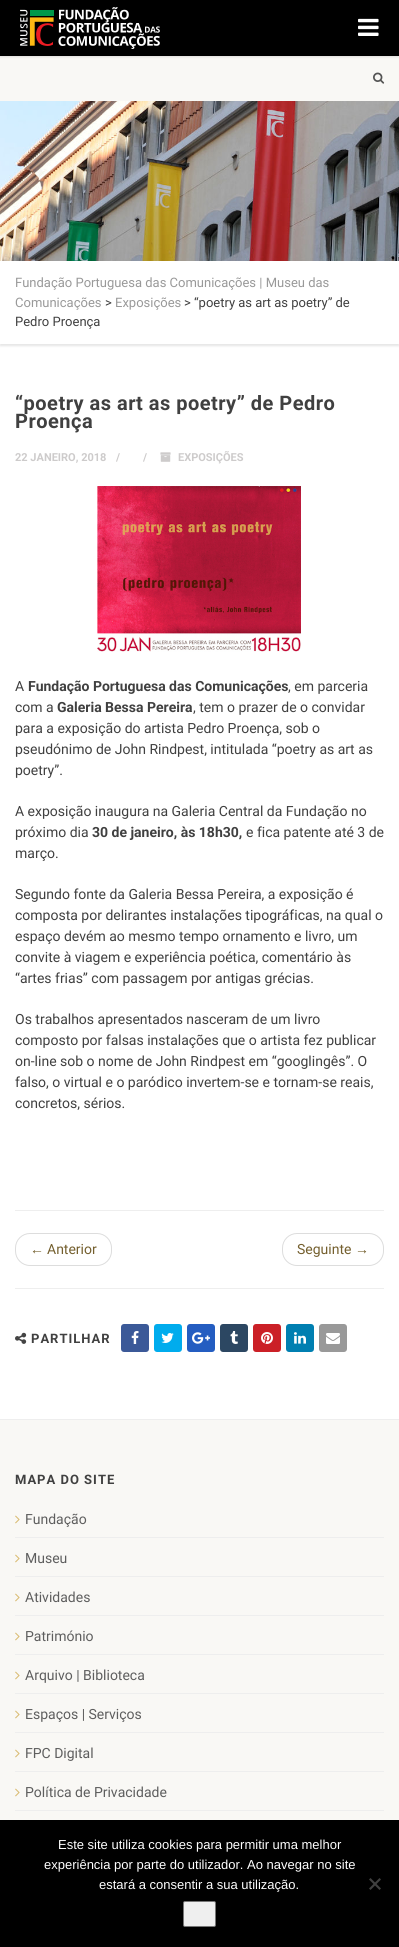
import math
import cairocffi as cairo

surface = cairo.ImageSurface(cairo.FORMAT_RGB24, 399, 1947)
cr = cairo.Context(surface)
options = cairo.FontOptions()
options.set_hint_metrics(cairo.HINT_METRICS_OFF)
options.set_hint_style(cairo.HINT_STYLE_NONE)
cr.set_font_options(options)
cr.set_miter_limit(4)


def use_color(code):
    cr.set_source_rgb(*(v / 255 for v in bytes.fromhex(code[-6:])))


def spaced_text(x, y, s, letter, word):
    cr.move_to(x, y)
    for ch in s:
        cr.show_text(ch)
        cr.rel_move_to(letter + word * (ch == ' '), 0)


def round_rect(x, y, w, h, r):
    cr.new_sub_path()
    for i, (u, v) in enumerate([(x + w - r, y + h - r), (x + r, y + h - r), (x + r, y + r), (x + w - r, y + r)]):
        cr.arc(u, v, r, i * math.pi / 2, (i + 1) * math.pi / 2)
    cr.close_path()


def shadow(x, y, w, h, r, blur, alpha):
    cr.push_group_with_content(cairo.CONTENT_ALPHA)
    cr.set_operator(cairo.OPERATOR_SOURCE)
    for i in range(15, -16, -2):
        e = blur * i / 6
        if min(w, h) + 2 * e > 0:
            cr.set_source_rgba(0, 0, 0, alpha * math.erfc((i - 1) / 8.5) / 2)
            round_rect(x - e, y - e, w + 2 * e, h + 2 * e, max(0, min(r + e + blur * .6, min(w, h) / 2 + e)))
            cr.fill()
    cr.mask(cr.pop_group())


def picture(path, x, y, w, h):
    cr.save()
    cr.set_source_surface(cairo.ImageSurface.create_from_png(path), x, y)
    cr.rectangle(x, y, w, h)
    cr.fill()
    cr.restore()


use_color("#ffffff")
cr.paint()
use_color("#f9f8f5")
cr.rectangle(0, 56, 399, 45)
cr.fill()
use_color("#000000")
shadow(0, 1, 399, 56, 0, 1, 0.1)
use_color("#000000")
cr.rectangle(0, 0, 399, 56)
cr.fill()
picture("img1.png", 20, 7, 140, 42)
picture("img2.png", 358, 18, 21, 18)
picture("img3.png", 373, 72, 12, 12)
cr.save()
cr.rectangle(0, 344, 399, 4)
cr.clip()
use_color("#e6e6e6")
shadow(0, 263, 399, 83, 0, 1, 1)
cr.restore()
picture("img4.png", 0, 101, 399, 160)
cr.select_font_face("Roboto")
cr.set_font_size(13)
use_color("#999999")
cr.move_to(15, 287)
cr.show_text("Fundação Portuguesa das Comunicações | Museu das")
cr.move_to(15, 307)
cr.show_text("Comunicações")
use_color("#404040")
cr.move_to(105, 307)
cr.show_text(">")
use_color("#999999")
cr.move_to(115, 307)
cr.show_text("Exposições")
use_color("#404040")
cr.move_to(184, 307)
cr.show_text("> “poetry as art as poetry” de")
cr.move_to(15, 326)
cr.show_text("Pedro Proença")
cr.select_font_face("Roboto", cairo.FONT_SLANT_NORMAL, cairo.FONT_WEIGHT_BOLD)
cr.set_font_size(20)
spaced_text(15, 410, "“poetry as art as poetry” de Pedro", 0.5, 0)
spaced_text(15, 428, "Proença", 0.5, 0)
cr.set_font_size(11)
use_color("#cdcbcb")
cr.move_to(15, 461)
cr.show_text("22 JANEIRO, 2018")
cr.move_to(116, 461)
cr.show_text("/")
cr.move_to(143, 461)
cr.show_text("/")
picture("img5.png", 160, 452, 11, 10)
cr.move_to(178, 461)
cr.show_text("EXPOSIÇÕES")
picture("img6.png", 97, 486, 204, 166)
cr.select_font_face("Roboto")
cr.set_font_size(14)
use_color("#404040")
cr.move_to(15, 691)
cr.show_text("A")
cr.select_font_face("Roboto", cairo.FONT_SLANT_NORMAL, cairo.FONT_WEIGHT_BOLD)
cr.move_to(28, 691)
cr.show_text("Fundação Portuguesa das Comunicações")
cr.select_font_face("Roboto")
cr.move_to(288, 691)
cr.show_text(", em parceria")
cr.move_to(15, 712)
cr.show_text("com a")
cr.select_font_face("Roboto", cairo.FONT_SLANT_NORMAL, cairo.FONT_WEIGHT_BOLD)
cr.move_to(57, 712)
cr.show_text("Galeria Bessa Pereira")
cr.select_font_face("Roboto")
cr.move_to(193, 712)
cr.show_text(", tem o prazer de o convidar")
cr.move_to(15, 733)
cr.show_text("para a exposição do artista Pedro Proença, sob o")
cr.move_to(15, 754)
cr.show_text("pseudónimo de John Rindpest, intitulada “poetry as art as")
cr.move_to(15, 775)
cr.show_text("poetry”.")
cr.move_to(15, 816)
cr.show_text("A exposição inaugura na Galeria Central da Fundação no")
cr.move_to(15, 837)
cr.show_text("próximo dia")
cr.select_font_face("Roboto", cairo.FONT_SLANT_NORMAL, cairo.FONT_WEIGHT_BOLD)
cr.move_to(92, 837)
cr.show_text("30 de janeiro, às 18h30,")
cr.select_font_face("Roboto")
cr.move_to(246, 837)
cr.show_text("e fica patente até 3 de")
cr.move_to(15, 858)
cr.show_text("março.")
cr.move_to(15, 899)
cr.show_text("Segundo fonte da Galeria Bessa Pereira, a exposição é")
cr.move_to(15, 920)
cr.show_text("composta por delirantes instalações tipográficas, na qual o")
cr.move_to(15, 941)
cr.show_text("espaço devém ao mesmo tempo ornamento e livro, um")
cr.move_to(15, 962)
cr.show_text("convite à viagem e experiência poética, comentário às")
cr.move_to(15, 983)
cr.show_text("“artes frias” com passagem por antigas grécias.")
cr.move_to(15, 1024)
cr.show_text("Os trabalhos apresentados nasceram de um livro")
cr.move_to(15, 1045)
cr.show_text("composto por falsas instalações que o artista fez publicar")
cr.move_to(15, 1066)
cr.show_text("on-line sob o nome de John Rindpest em “googlingês”. O")
cr.move_to(15, 1087)
cr.show_text("falso, o virtual e o paródico invertem-se e tornam-se reais,")
cr.move_to(15, 1108)
cr.show_text("concretos, sérios.")
use_color("#eeeeee")
cr.rectangle(15, 1210, 369, 1)
cr.fill()
cr.rectangle(15, 1288, 369, 1)
cr.fill()
round_rect(15.5, 1233.5, 96, 32, 14.5)
use_color("#dddddd")
cr.set_line_width(1)
cr.stroke()
cr.select_font_face("Liberation Serif")
use_color("#745f2e")
cr.move_to(30, 1254)
cr.show_text("←")
cr.select_font_face("Roboto")
cr.move_to(47, 1254)
cr.show_text("Anterior")
round_rect(282.5, 1233.5, 101, 32, 14.5)
use_color("#dddddd")
cr.stroke()
use_color("#745f2e")
cr.move_to(297, 1254)
cr.show_text("Seguinte")
cr.select_font_face("Liberation Serif")
cr.move_to(355, 1254)
cr.show_text("→")
picture("img7.png", 15, 1332, 12, 12)
cr.select_font_face("Roboto", cairo.FONT_SLANT_NORMAL, cairo.FONT_WEIGHT_BOLD)
cr.set_font_size(13)
use_color("#404040")
spaced_text(31, 1343, "PARTILHAR", 1, 0)
use_color("#3b5998")
round_rect(121, 1324, 28, 28, 3)
cr.fill()
picture("img8.png", 131, 1331, 8, 13)
use_color("#00aced")
round_rect(154, 1324, 28, 28, 3)
cr.fill()
picture("img9.png", 161, 1333, 13, 10)
use_color("#245dc1")
round_rect(187, 1324, 28, 28, 3)
cr.fill()
picture("img10.png", 192, 1332, 18, 12)
use_color("#2c4762")
round_rect(220, 1324, 28, 28, 3)
cr.fill()
picture("img11.png", 230, 1331, 8, 13)
use_color("#cb2027")
round_rect(253, 1324, 28, 28, 3)
cr.fill()
picture("img12.png", 261, 1332, 12, 12)
use_color("#007fb1")
round_rect(286, 1324, 28, 28, 3)
cr.fill()
picture("img13.png", 294, 1332, 12, 12)
use_color("#999999")
round_rect(319, 1324, 28, 28, 3)
cr.fill()
picture("img14.png", 326, 1333, 14, 11)
use_color("#f9f8f5")
cr.rectangle(0, 1420, 399, 400)
cr.fill()
use_color("#eeeeee")
cr.rectangle(0, 1419, 399, 1)
cr.fill()
use_color("#404040")
spaced_text(15, 1484, "MAPA DO SITE", 1, 0)
use_color("#eeeeee")
cr.rectangle(15, 1537, 369, 1)
cr.fill()
picture("img15.png", 15, 1515, 5, 9)
cr.select_font_face("Roboto")
cr.set_font_size(14)
use_color("#5e5e5e")
cr.move_to(25, 1524)
cr.show_text("Fundação")
use_color("#eeeeee")
cr.rectangle(15, 1576, 369, 1)
cr.fill()
picture("img15.png", 15, 1554, 5, 9)
use_color("#5e5e5e")
cr.move_to(25, 1563)
cr.show_text("Museu")
use_color("#eeeeee")
cr.rectangle(15, 1615, 369, 1)
cr.fill()
picture("img15.png", 15, 1593, 5, 9)
use_color("#5e5e5e")
cr.move_to(25, 1602)
cr.show_text("Atividades")
use_color("#eeeeee")
cr.rectangle(15, 1654, 369, 1)
cr.fill()
picture("img15.png", 15, 1632, 5, 9)
use_color("#5e5e5e")
cr.move_to(25, 1641)
cr.show_text("Património")
use_color("#eeeeee")
cr.rectangle(15, 1693, 369, 1)
cr.fill()
picture("img15.png", 15, 1671, 5, 9)
use_color("#5e5e5e")
cr.move_to(25, 1680)
cr.show_text("Arquivo | Biblioteca")
use_color("#eeeeee")
cr.rectangle(15, 1732, 369, 1)
cr.fill()
picture("img15.png", 15, 1710, 5, 9)
use_color("#5e5e5e")
cr.move_to(25, 1719)
cr.show_text("Espaços | Serviços")
use_color("#eeeeee")
cr.rectangle(15, 1771, 369, 1)
cr.fill()
picture("img15.png", 15, 1749, 5, 9)
use_color("#5e5e5e")
cr.move_to(25, 1758)
cr.show_text("FPC Digital")
use_color("#eeeeee")
cr.rectangle(15, 1810, 369, 1)
cr.fill()
picture("img15.png", 15, 1788, 5, 9)
use_color("#5e5e5e")
cr.move_to(25, 1797)
cr.show_text("Política de Privacidade")
use_color("#000000")
cr.rectangle(0, 1820, 399, 127)
cr.fill()
cr.select_font_face("Liberation Sans")
cr.set_font_size(13)
use_color("#ffffff")
cr.move_to(58, 1849)
cr.show_text("Este site utiliza cookies para permitir uma melhor")
cr.move_to(44, 1869)
cr.show_text("experiência por parte do utilizador. Ao navegar no site")
cr.move_to(99, 1889)
cr.show_text("estará a consentir a sua utilização.")
use_color("#404040")
cr.new_path()
cr.move_to(379.5, 1878)
cr.line_to(381, 1879.5)
cr.line_to(370.5, 1890)
cr.line_to(369, 1888.5)
cr.close_path()
cr.fill()
cr.new_path()
cr.move_to(369, 1879.5)
cr.line_to(370.5, 1878)
cr.line_to(381, 1888.5)
cr.line_to(379.5, 1890)
cr.close_path()
cr.fill()
use_color("#efefef")
round_rect(183.5, 1901.5, 32, 25, 1.5)
cr.fill_preserve()
use_color("#767676")
cr.stroke()
surface.write_to_png("result.png")
